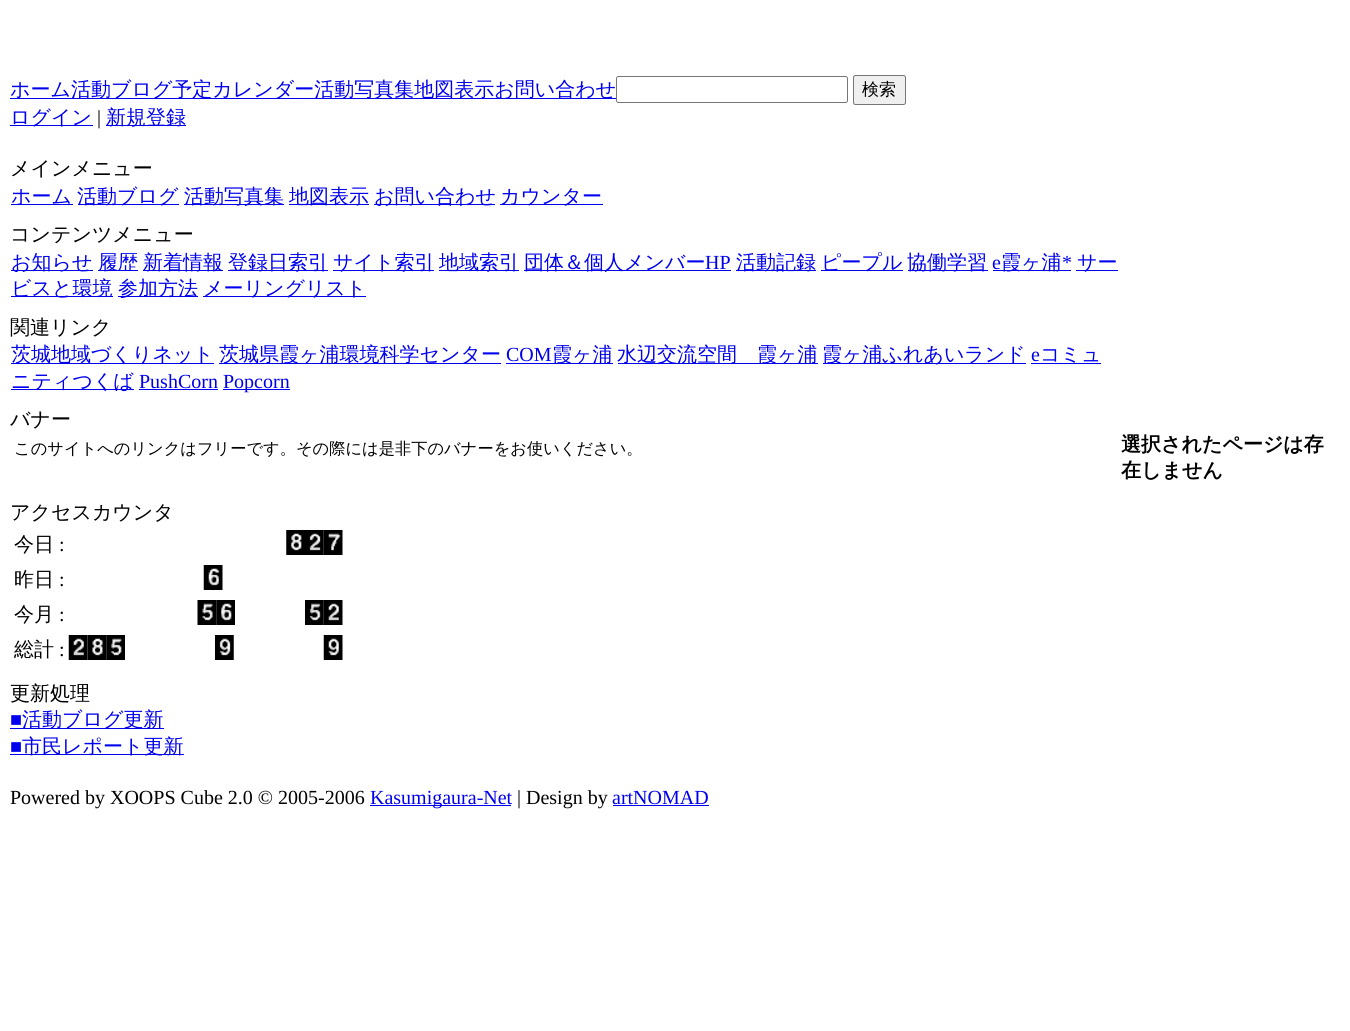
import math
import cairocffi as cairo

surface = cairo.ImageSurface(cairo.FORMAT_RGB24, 1350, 1031)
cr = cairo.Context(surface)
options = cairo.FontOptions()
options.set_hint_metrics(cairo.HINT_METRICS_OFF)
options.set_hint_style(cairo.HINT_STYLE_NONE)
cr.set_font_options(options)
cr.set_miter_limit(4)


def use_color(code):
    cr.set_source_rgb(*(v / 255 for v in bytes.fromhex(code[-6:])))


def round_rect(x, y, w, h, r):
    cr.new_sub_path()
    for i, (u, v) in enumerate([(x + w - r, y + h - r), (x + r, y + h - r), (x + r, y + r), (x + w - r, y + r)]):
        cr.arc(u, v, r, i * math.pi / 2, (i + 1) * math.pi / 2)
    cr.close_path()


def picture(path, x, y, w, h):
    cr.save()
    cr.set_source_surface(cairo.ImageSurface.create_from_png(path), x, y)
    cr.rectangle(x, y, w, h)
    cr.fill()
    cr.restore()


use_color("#ffffff")
cr.paint()
use_color("#0000ee")
cr.rectangle(10, 98, 606, 1)
cr.fill()
cr.select_font_face("WenQuanYi Zen Hei Medium")
cr.set_font_size(20)
cr.move_to(10, 96)
cr.show_text("ホーム活動ブログ予定カレンダー活動写真集地図表示お問い合わせ")
round_rect(616.5, 76.5, 231, 26, 2)
use_color("#767676")
cr.set_line_width(1)
cr.stroke()
use_color("#efefef")
round_rect(853.5, 75.5, 52, 29, 2)
cr.fill_preserve()
use_color("#767676")
cr.stroke()
cr.set_font_size(17)
use_color("#000000")
cr.move_to(862, 95)
cr.show_text("検索")
use_color("#0000ee")
cr.rectangle(10, 125, 83, 1)
cr.fill()
cr.set_font_size(20)
cr.move_to(10, 124)
cr.show_text("ログイン")
cr.select_font_face("Liberation Serif")
use_color("#000000")
cr.move_to(97, 124)
cr.show_text("|")
use_color("#0000ee")
cr.rectangle(106, 125, 80, 1)
cr.fill()
cr.select_font_face("WenQuanYi Zen Hei Medium")
cr.move_to(106, 124)
cr.show_text("新規登録")
use_color("#000000")
cr.move_to(10, 175)
cr.show_text("メインメニュー")
use_color("#0000ee")
cr.rectangle(11, 204, 62, 1)
cr.fill()
cr.move_to(11, 203)
cr.show_text("ホーム")
cr.rectangle(78, 204, 101, 1)
cr.fill()
cr.move_to(77, 203)
cr.show_text("活動ブログ")
cr.rectangle(184, 204, 100, 1)
cr.fill()
cr.move_to(184, 203)
cr.show_text("活動写真集")
cr.rectangle(289, 204, 80, 1)
cr.fill()
cr.move_to(289, 203)
cr.show_text("地図表示")
cr.rectangle(374, 204, 121, 1)
cr.fill()
cr.move_to(374, 203)
cr.show_text("お問い合わせ")
cr.rectangle(500, 204, 103, 1)
cr.fill()
cr.move_to(500, 203)
cr.show_text("カウンター")
use_color("#000000")
cr.move_to(10, 241)
cr.show_text("コンテンツメニュー")
use_color("#0000ee")
cr.rectangle(11, 270, 82, 1)
cr.fill()
cr.move_to(11, 269)
cr.show_text("お知らせ")
cr.rectangle(98, 270, 40, 1)
cr.fill()
cr.move_to(98, 269)
cr.show_text("履歴")
cr.rectangle(143, 270, 80, 1)
cr.fill()
cr.move_to(143, 269)
cr.show_text("新着情報")
cr.rectangle(228, 270, 100, 1)
cr.fill()
cr.move_to(228, 269)
cr.show_text("登録日索引")
cr.rectangle(333, 270, 101, 1)
cr.fill()
cr.move_to(333, 269)
cr.show_text("サイト索引")
cr.rectangle(439, 270, 80, 1)
cr.fill()
cr.move_to(439, 269)
cr.show_text("地域索引")
cr.rectangle(524, 270, 207, 1)
cr.fill()
cr.move_to(524, 269)
cr.show_text("団体＆個人メンバー")
cr.select_font_face("Liberation Serif")
cr.move_to(705, 269)
cr.show_text("HP")
cr.rectangle(736, 270, 80, 1)
cr.fill()
cr.select_font_face("WenQuanYi Zen Hei Medium")
cr.move_to(736, 269)
cr.show_text("活動記録")
cr.rectangle(821, 270, 82, 1)
cr.fill()
cr.move_to(821, 269)
cr.show_text("ピープル")
cr.rectangle(908, 270, 80, 1)
cr.fill()
cr.move_to(907, 269)
cr.show_text("協働学習")
cr.select_font_face("Liberation Serif")
cr.move_to(992, 269)
cr.show_text("e")
cr.rectangle(993, 270, 78, 1)
cr.fill()
cr.select_font_face("WenQuanYi Zen Hei Medium")
cr.move_to(1001, 269)
cr.show_text("霞ヶ浦")
cr.select_font_face("Liberation Serif")
cr.move_to(1062, 269)
cr.show_text("*")
cr.rectangle(1076, 270, 42, 1)
cr.fill()
cr.select_font_face("WenQuanYi Zen Hei Medium")
cr.move_to(1077, 269)
cr.show_text("サー")
cr.rectangle(11, 296, 102, 1)
cr.fill()
cr.move_to(11, 295)
cr.show_text("ビスと環境")
cr.rectangle(118, 296, 80, 1)
cr.fill()
cr.move_to(118, 295)
cr.show_text("参加方法")
cr.rectangle(203, 296, 163, 1)
cr.fill()
cr.move_to(203, 295)
cr.show_text("メーリングリスト")
use_color("#000000")
cr.move_to(10, 334)
cr.show_text("関連リンク")
use_color("#0000ee")
cr.rectangle(11, 363, 203, 1)
cr.fill()
cr.move_to(11, 361)
cr.show_text("茨城地域づくりネット")
cr.rectangle(219, 363, 282, 1)
cr.fill()
cr.move_to(219, 361)
cr.show_text("茨城県霞ヶ浦環境科学センター")
cr.select_font_face("Liberation Serif")
cr.move_to(506, 361)
cr.show_text("COM")
cr.rectangle(506, 363, 107, 1)
cr.fill()
cr.select_font_face("WenQuanYi Zen Hei Medium")
cr.move_to(552, 361)
cr.show_text("霞ヶ浦")
cr.rectangle(618, 363, 200, 1)
cr.fill()
cr.move_to(617, 361)
cr.show_text("水辺交流空間　霞ヶ浦")
cr.rectangle(823, 363, 203, 1)
cr.fill()
cr.move_to(822, 361)
cr.show_text("霞ヶ浦ふれあいランド")
cr.select_font_face("Liberation Serif")
cr.move_to(1031, 361)
cr.show_text("e")
cr.rectangle(1031, 363, 70, 1)
cr.fill()
cr.select_font_face("WenQuanYi Zen Hei Medium")
cr.move_to(1040, 361)
cr.show_text("コミュ")
cr.rectangle(11, 389, 123, 1)
cr.fill()
cr.move_to(11, 388)
cr.show_text("ニティつくば")
cr.select_font_face("Liberation Serif")
cr.move_to(139, 388)
cr.show_text("PushCorn")
cr.rectangle(139, 389, 79, 1)
cr.fill()
cr.rectangle(223, 389, 67, 1)
cr.fill()
cr.move_to(223, 388)
cr.show_text("Popcorn")
cr.select_font_face("WenQuanYi Zen Hei Medium")
use_color("#000000")
cr.move_to(10, 426)
cr.show_text("バナー")
cr.set_font_size(16.25)
cr.move_to(14, 454)
cr.show_text("このサイトへのリンクはフリーです。その際には是非下のバナーをお使いください。")
cr.set_font_size(20)
cr.move_to(10, 519)
cr.show_text("アクセスカウンタ")
cr.move_to(14, 551)
cr.show_text("今日")
cr.select_font_face("Liberation Serif")
cr.move_to(59, 551)
cr.show_text(":")
picture("img1.png", 286, 530, 19, 25)
picture("img2.png", 305, 530, 19, 25)
picture("img3.png", 323, 530, 20, 25)
cr.select_font_face("WenQuanYi Zen Hei Medium")
cr.move_to(14, 586)
cr.show_text("昨日")
cr.select_font_face("Liberation Serif")
cr.move_to(59, 586)
cr.show_text(":")
picture("img4.png", 203, 565, 20, 25)
cr.select_font_face("WenQuanYi Zen Hei Medium")
cr.move_to(14, 621)
cr.show_text("今月")
cr.select_font_face("Liberation Serif")
cr.move_to(59, 621)
cr.show_text(":")
picture("img5.png", 197, 600, 20, 25)
picture("img6.png", 216, 600, 19, 25)
picture("img7.png", 305, 600, 19, 25)
picture("img8.png", 323, 600, 20, 25)
cr.select_font_face("WenQuanYi Zen Hei Medium")
cr.move_to(14, 656)
cr.show_text("総計")
cr.select_font_face("Liberation Serif")
cr.move_to(59, 656)
cr.show_text(":")
picture("img9.png", 68, 635, 20, 25)
picture("img10.png", 87, 635, 20, 25)
picture("img11.png", 106, 635, 19, 25)
picture("img12.png", 215, 635, 19, 25)
picture("img13.png", 323, 635, 20, 25)
cr.select_font_face("WenQuanYi Zen Hei Medium")
cr.move_to(10, 700)
cr.show_text("更新処理")
cr.select_font_face("Liberation Serif")
use_color("#0000ee")
cr.move_to(10, 726)
cr.show_text("■")
cr.rectangle(10, 728, 154, 1)
cr.fill()
cr.select_font_face("WenQuanYi Zen Hei Medium")
cr.move_to(22, 726)
cr.show_text("活動ブログ更新")
cr.select_font_face("Liberation Serif")
cr.move_to(10, 753)
cr.show_text("■")
cr.rectangle(10, 754, 174, 1)
cr.fill()
cr.select_font_face("WenQuanYi Zen Hei Medium")
cr.move_to(22, 753)
cr.show_text("市民レポート更新")
cr.select_font_face("WenQuanYi Zen Hei", cairo.FONT_SLANT_NORMAL, cairo.FONT_WEIGHT_BOLD)
use_color("#000000")
cr.move_to(1121, 451)
cr.show_text("選択されたページは存")
cr.move_to(1121, 477)
cr.show_text("在しません")
cr.select_font_face("Liberation Serif")
cr.move_to(10, 804)
cr.show_text("Powered by XOOPS Cube 2.0 © 2005-2006")
use_color("#0000ee")
cr.rectangle(370, 805, 141, 1)
cr.fill()
cr.move_to(370, 804)
cr.show_text("Kasumigaura-Net")
use_color("#000000")
cr.move_to(517, 804)
cr.show_text("| Design by")
use_color("#0000ee")
cr.move_to(612, 804)
cr.show_text("artNOMAD")
cr.rectangle(613, 805, 96, 1)
cr.fill()
surface.write_to_png("result.png")
